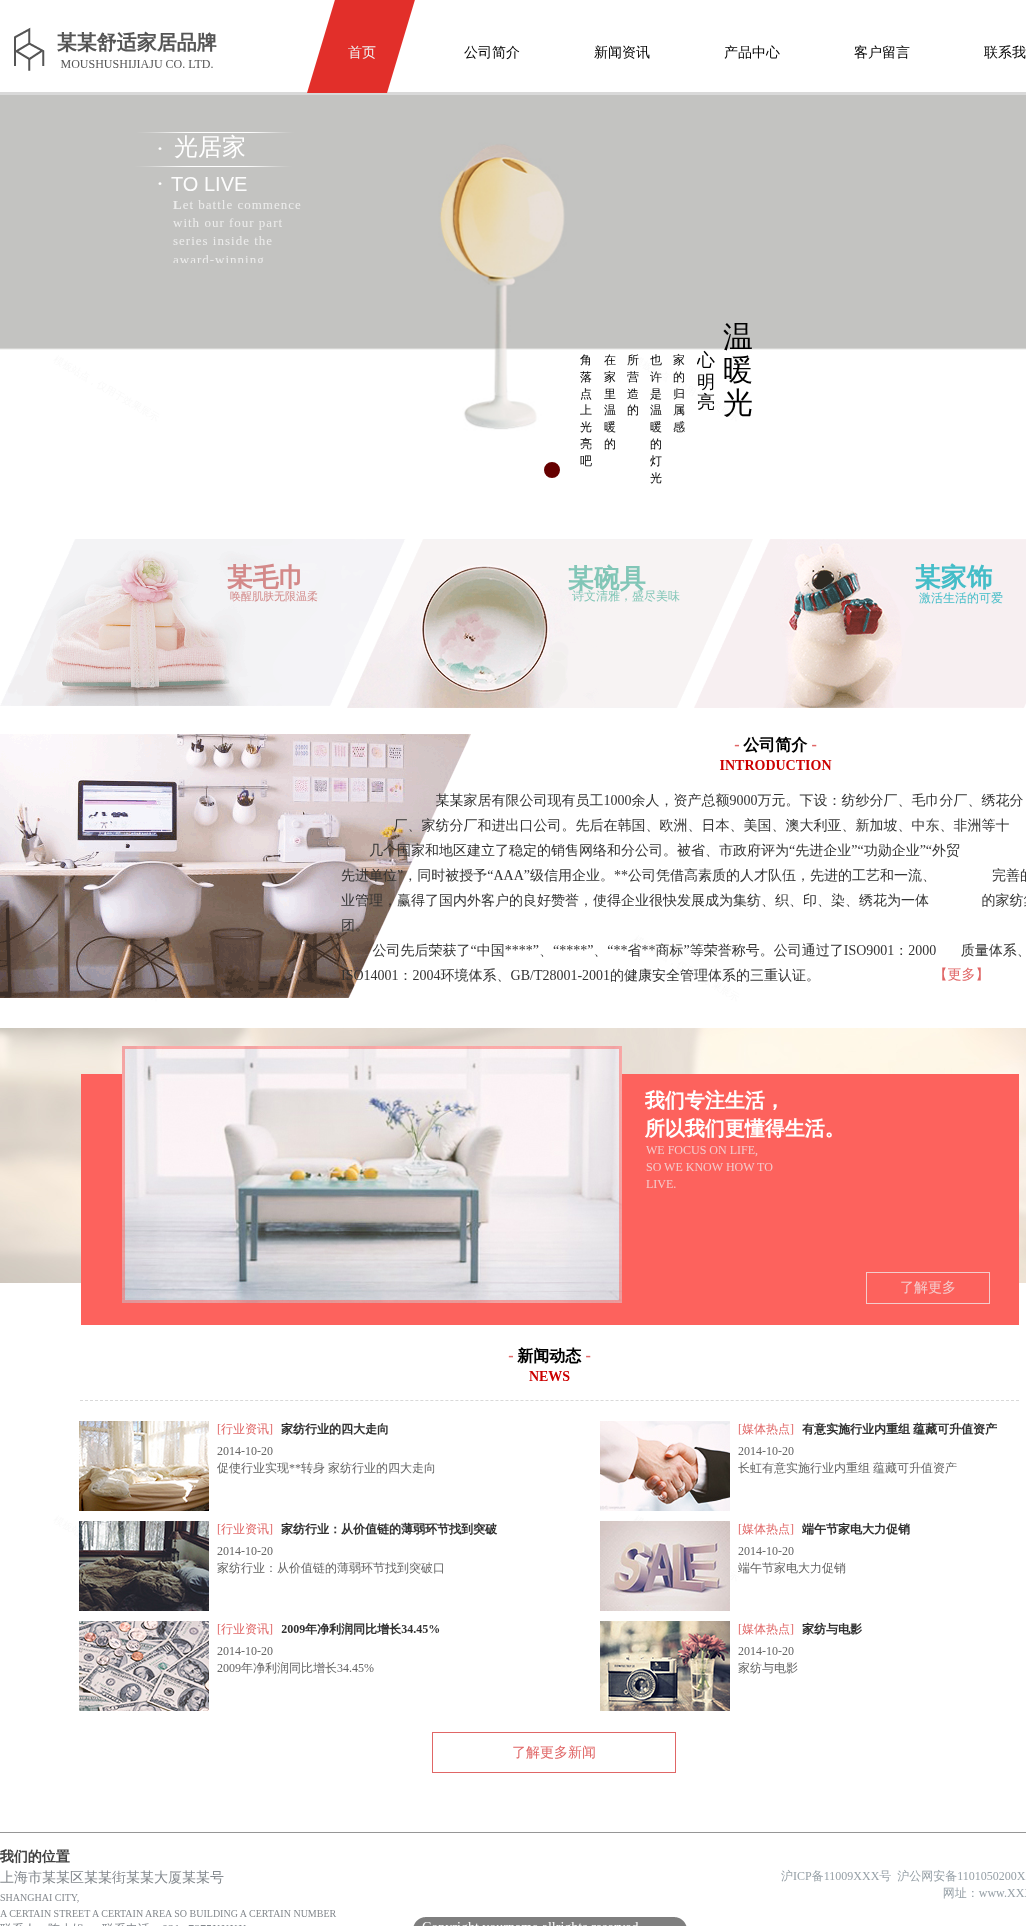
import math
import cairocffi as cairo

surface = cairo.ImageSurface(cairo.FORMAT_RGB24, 1026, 1926)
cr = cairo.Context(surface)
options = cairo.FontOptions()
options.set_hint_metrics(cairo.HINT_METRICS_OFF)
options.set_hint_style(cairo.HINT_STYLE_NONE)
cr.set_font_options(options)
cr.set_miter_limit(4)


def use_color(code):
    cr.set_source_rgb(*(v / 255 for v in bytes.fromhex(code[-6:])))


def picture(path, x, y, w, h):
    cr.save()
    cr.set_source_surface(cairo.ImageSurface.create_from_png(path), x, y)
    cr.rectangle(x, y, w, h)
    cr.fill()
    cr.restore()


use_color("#ffffff")
cr.paint()
picture("img1.png", 0, 0, 1026, 1926)
surface.write_to_png("result.png")
